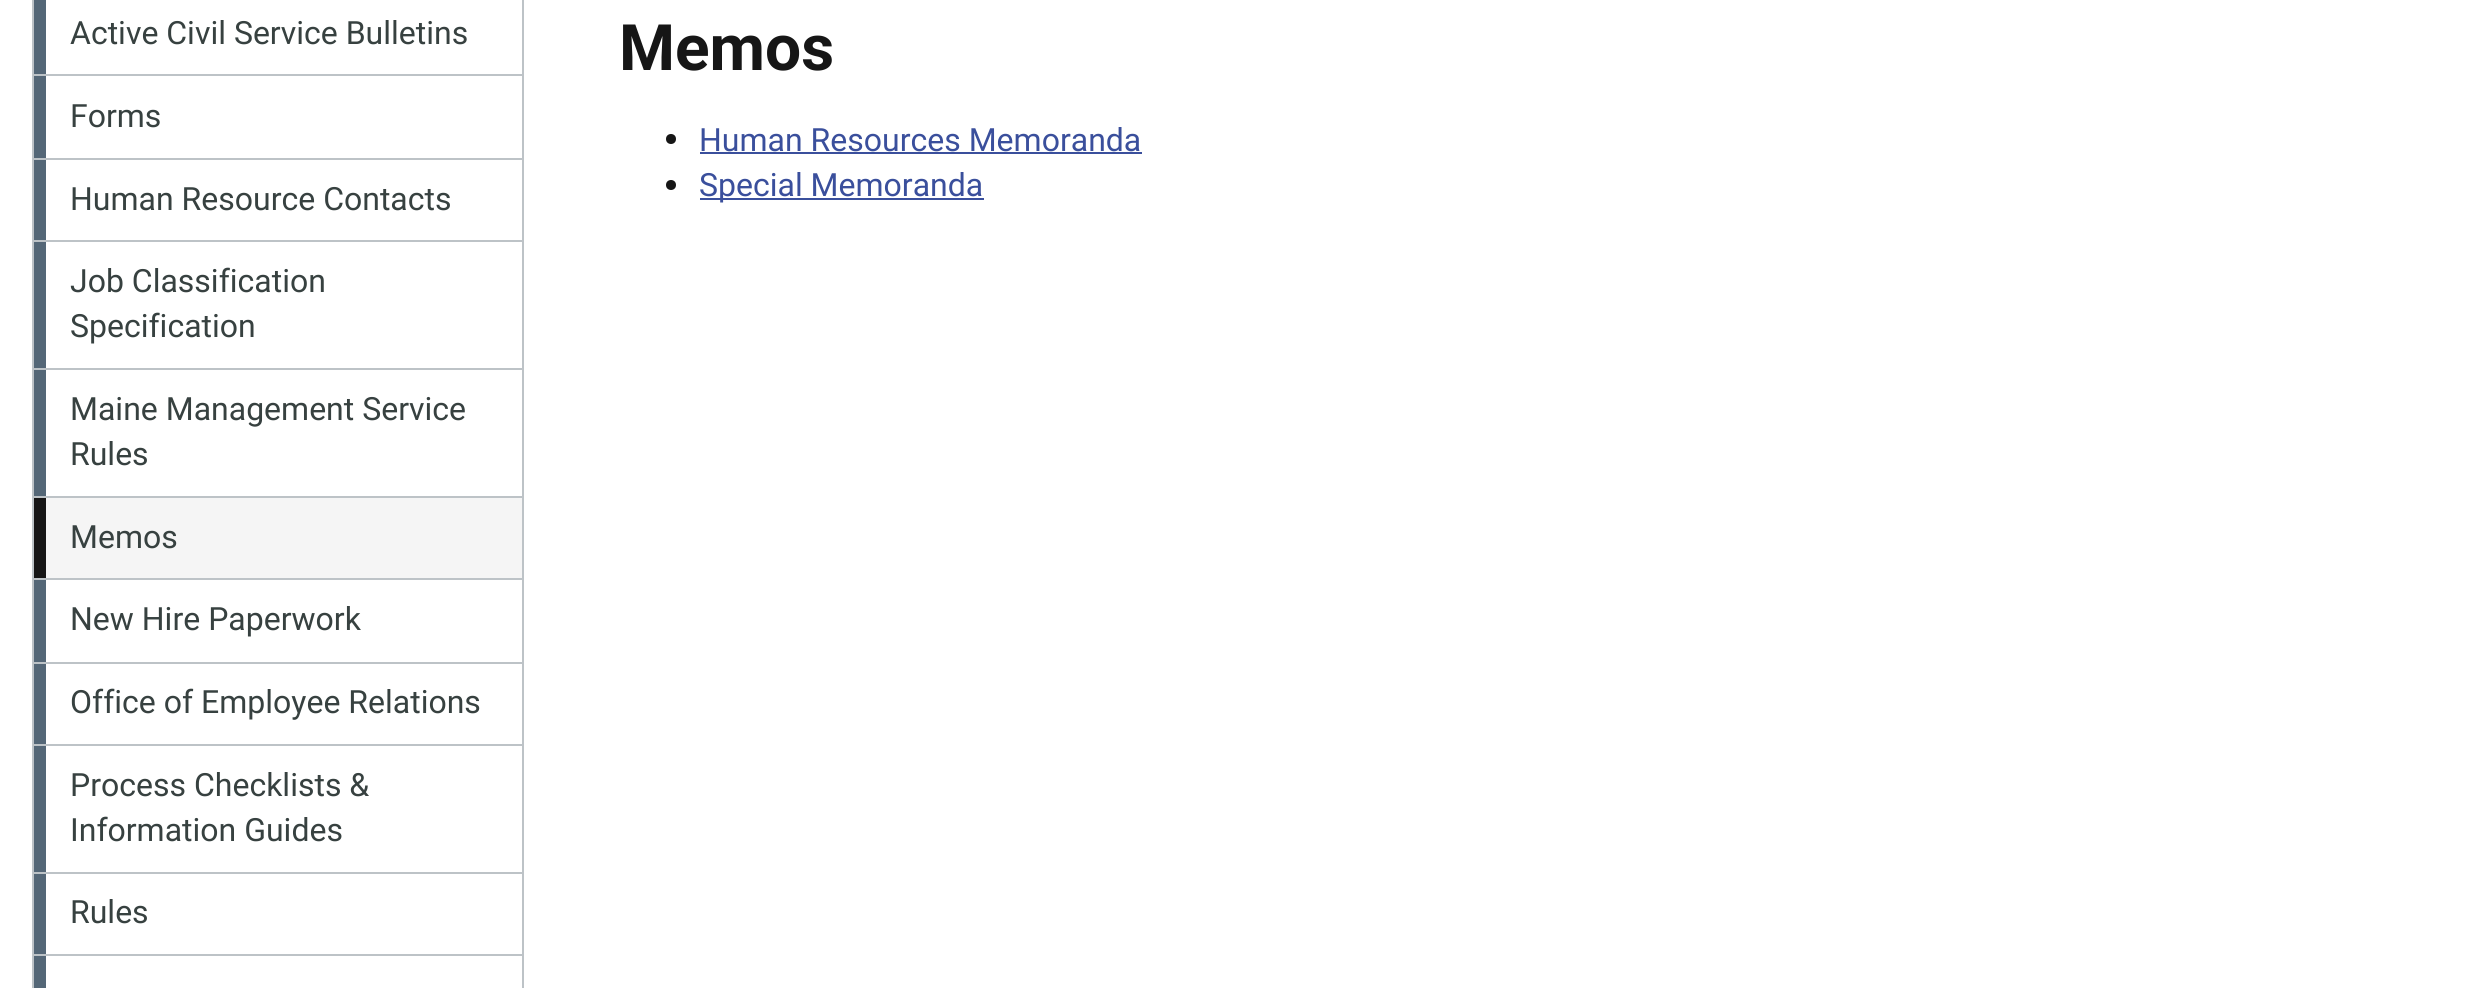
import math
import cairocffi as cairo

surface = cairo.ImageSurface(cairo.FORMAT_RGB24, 2470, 988)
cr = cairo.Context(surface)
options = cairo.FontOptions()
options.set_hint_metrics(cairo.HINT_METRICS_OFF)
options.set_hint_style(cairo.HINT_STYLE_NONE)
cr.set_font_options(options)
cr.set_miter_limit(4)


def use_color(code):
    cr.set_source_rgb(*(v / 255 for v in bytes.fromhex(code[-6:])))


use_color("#ffffff")
cr.paint()
cr.rectangle(33, -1, 490, 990)
use_color("#bdc3c7")
cr.stroke()
cr.rectangle(34, 74, 488, 2)
cr.fill()
use_color("#546777")
cr.rectangle(34, 0, 12, 74)
cr.fill()
cr.select_font_face("Roboto")
cr.set_font_size(32)
use_color("#374140")
cr.move_to(70, 44)
cr.show_text("Active Civil Service Bulletins")
use_color("#bdc3c7")
cr.rectangle(34, 158, 488, 2)
cr.fill()
use_color("#546777")
cr.rectangle(34, 76, 12, 82)
cr.fill()
use_color("#374140")
cr.move_to(70, 127)
cr.show_text("Forms")
use_color("#bdc3c7")
cr.rectangle(34, 240, 488, 2)
cr.fill()
use_color("#546777")
cr.rectangle(34, 160, 12, 80)
cr.fill()
use_color("#374140")
cr.move_to(70, 210)
cr.show_text("Human Resource Contacts")
use_color("#bdc3c7")
cr.rectangle(34, 368, 488, 2)
cr.fill()
use_color("#546777")
cr.rectangle(34, 242, 12, 126)
cr.fill()
use_color("#374140")
cr.move_to(70, 292)
cr.show_text("Job Classification")
cr.move_to(70, 337)
cr.show_text("Specification")
use_color("#bdc3c7")
cr.rectangle(34, 496, 488, 2)
cr.fill()
use_color("#546777")
cr.rectangle(34, 370, 12, 126)
cr.fill()
use_color("#374140")
cr.move_to(70, 420)
cr.show_text("Maine Management Service")
cr.move_to(70, 465)
cr.show_text("Rules")
use_color("#bdc3c7")
cr.rectangle(34, 578, 488, 2)
cr.fill()
use_color("#f5f5f5")
cr.rectangle(46, 498, 476, 80)
cr.fill()
use_color("#161616")
cr.rectangle(34, 498, 12, 80)
cr.fill()
use_color("#374140")
cr.move_to(70, 548)
cr.show_text("Memos")
use_color("#bdc3c7")
cr.rectangle(34, 662, 488, 2)
cr.fill()
use_color("#546777")
cr.rectangle(34, 580, 12, 82)
cr.fill()
use_color("#374140")
cr.move_to(70, 630)
cr.show_text("New Hire Paperwork")
use_color("#bdc3c7")
cr.rectangle(34, 744, 488, 2)
cr.fill()
use_color("#546777")
cr.rectangle(34, 664, 12, 80)
cr.fill()
use_color("#374140")
cr.move_to(70, 713)
cr.show_text("Office of Employee Relations")
use_color("#bdc3c7")
cr.rectangle(34, 872, 488, 2)
cr.fill()
use_color("#546777")
cr.rectangle(34, 746, 12, 126)
cr.fill()
use_color("#374140")
cr.move_to(70, 796)
cr.show_text("Process Checklists &")
cr.move_to(70, 841)
cr.show_text("Information Guides")
use_color("#bdc3c7")
cr.rectangle(34, 954, 488, 2)
cr.fill()
use_color("#546777")
cr.rectangle(34, 874, 12, 80)
cr.fill()
use_color("#374140")
cr.move_to(70, 923)
cr.show_text("Rules")
use_color("#546777")
cr.rectangle(34, 956, 12, 32)
cr.fill()
cr.select_font_face("Roboto", cairo.FONT_SLANT_NORMAL, cairo.FONT_WEIGHT_BOLD)
cr.set_font_size(64)
use_color("#161616")
cr.move_to(619, 70)
cr.show_text("Memos")
cr.new_path()
cr.arc(671, 139, 5, 0, 2 * math.pi)
cr.fill()
cr.select_font_face("Roboto")
cr.set_font_size(32)
use_color("#3a4f9c")
cr.move_to(699, 151)
cr.show_text("Human Resources Memoranda")
cr.rectangle(700, 152, 442, 2)
cr.fill()
use_color("#161616")
cr.arc(671, 185, 5, 0, 2 * math.pi)
cr.fill()
use_color("#3a4f9c")
cr.rectangle(700, 198, 284, 2)
cr.fill()
cr.move_to(699, 196)
cr.show_text("Special Memoranda")
surface.write_to_png("result.png")
